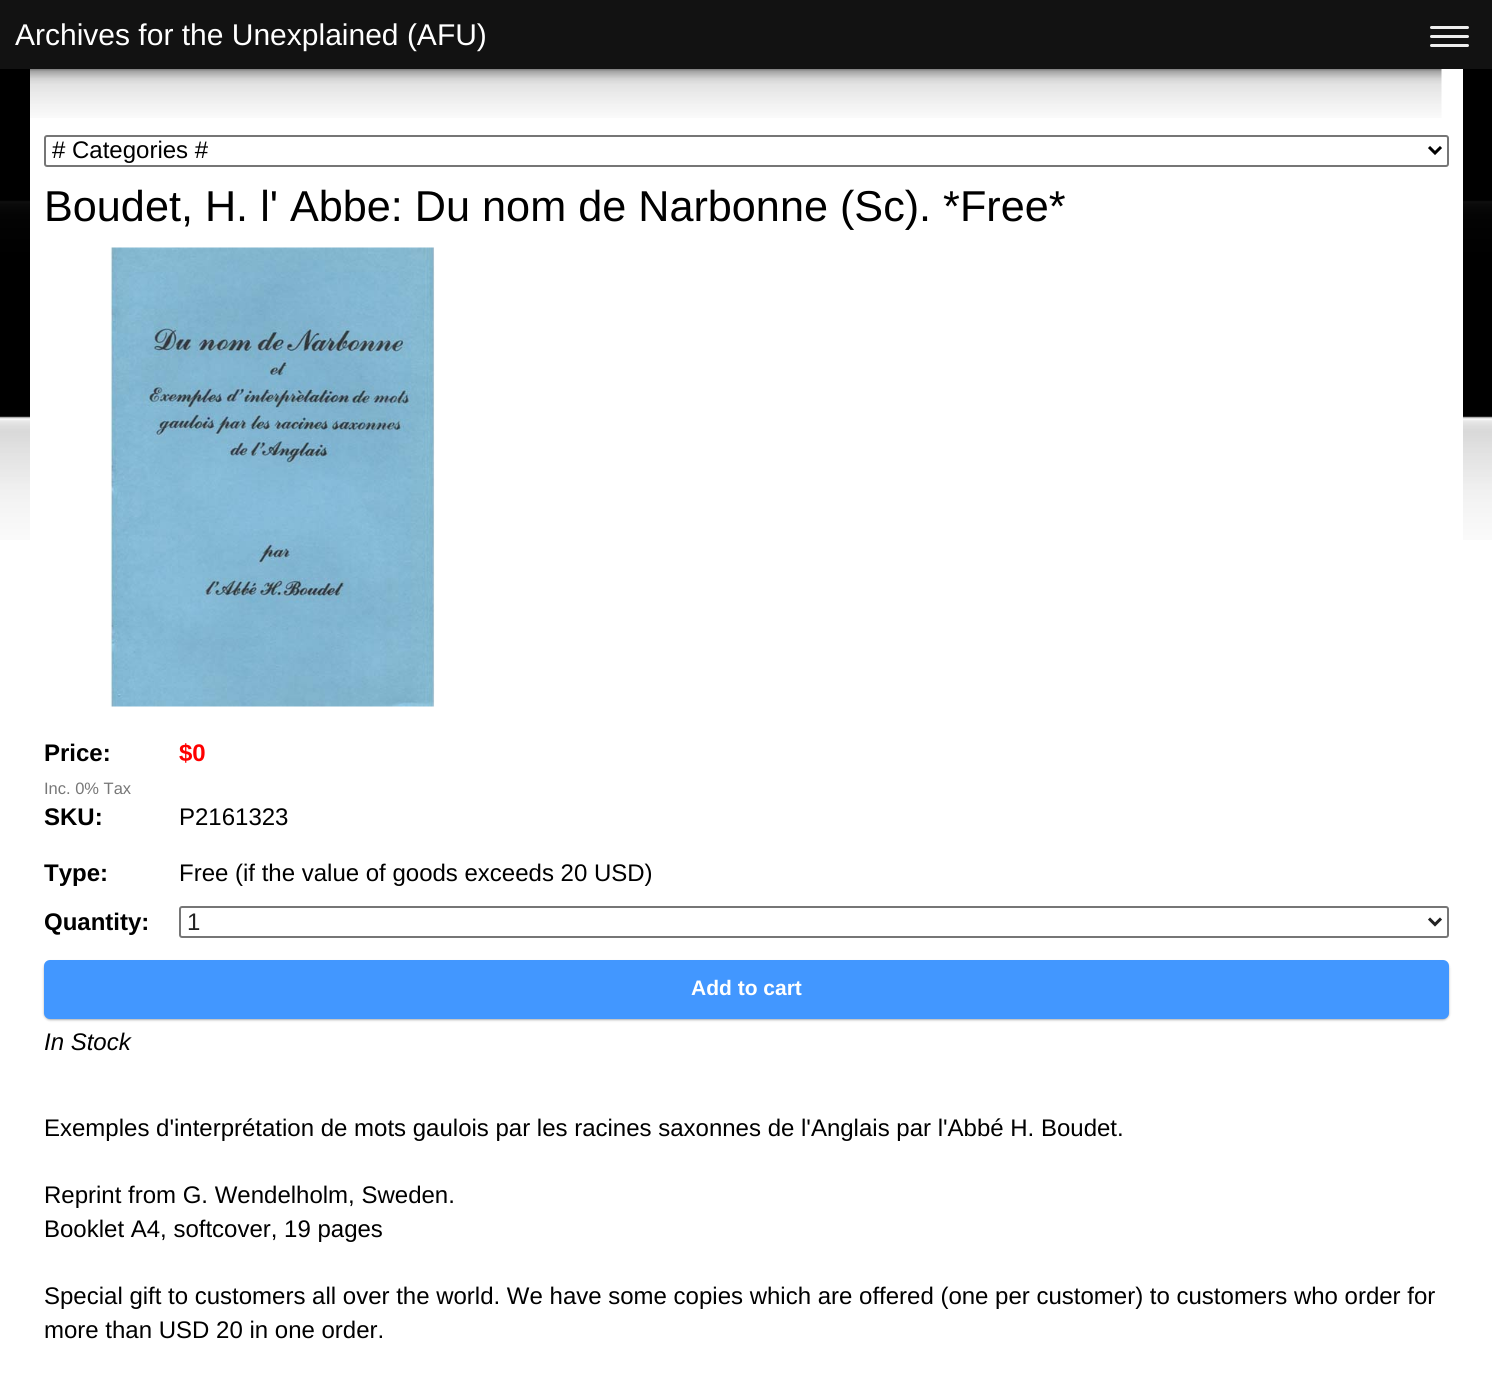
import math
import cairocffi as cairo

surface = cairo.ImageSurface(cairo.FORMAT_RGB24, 1492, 1386)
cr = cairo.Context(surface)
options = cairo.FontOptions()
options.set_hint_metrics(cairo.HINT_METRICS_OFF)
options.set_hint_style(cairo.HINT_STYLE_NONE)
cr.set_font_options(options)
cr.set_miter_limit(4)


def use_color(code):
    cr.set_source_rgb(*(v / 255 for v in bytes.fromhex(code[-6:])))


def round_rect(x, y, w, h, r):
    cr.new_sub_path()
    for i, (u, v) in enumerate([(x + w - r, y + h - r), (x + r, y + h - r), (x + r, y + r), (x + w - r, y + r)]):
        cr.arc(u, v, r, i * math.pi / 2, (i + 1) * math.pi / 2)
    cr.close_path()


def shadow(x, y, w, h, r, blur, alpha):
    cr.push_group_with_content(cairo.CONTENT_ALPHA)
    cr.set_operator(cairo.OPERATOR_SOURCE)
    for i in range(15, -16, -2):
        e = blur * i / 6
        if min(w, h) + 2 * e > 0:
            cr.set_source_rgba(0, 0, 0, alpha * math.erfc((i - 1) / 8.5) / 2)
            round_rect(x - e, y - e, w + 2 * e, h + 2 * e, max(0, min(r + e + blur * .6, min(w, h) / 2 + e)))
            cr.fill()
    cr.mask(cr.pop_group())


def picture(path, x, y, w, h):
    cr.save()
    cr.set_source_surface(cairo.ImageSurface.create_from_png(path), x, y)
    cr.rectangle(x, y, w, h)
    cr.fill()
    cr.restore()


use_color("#ffffff")
cr.paint()
picture("img1.png", 0, 69, 1492, 471)
use_color("#121212")
cr.rectangle(0, 0, 1492, 69)
cr.fill()
cr.select_font_face("Liberation Sans")
cr.set_font_size(30)
use_color("#ffffff")
cr.move_to(15, 45)
cr.show_text("Archives for the Unexplained (AFU)")
use_color("#eeeeee")
round_rect(1430, 26, 39, 3, 1.5)
cr.fill()
round_rect(1430, 35, 39, 3, 1.5)
cr.fill()
round_rect(1430, 44, 39, 3, 1.5)
cr.fill()
use_color("#ffffff")
cr.rectangle(30, 69, 1433, 471)
cr.fill()
picture("img2.png", 30, 69, 1412, 49)
round_rect(45, 136, 1403, 30, 2)
use_color("#767676")
cr.stroke()
cr.new_path()
cr.move_to(1429, 147)
cr.line_to(1435, 153)
cr.line_to(1441, 147)
use_color("#000000")
cr.set_line_width(3)
cr.stroke()
cr.set_font_size(24)
cr.move_to(52, 158)
cr.show_text("# Categories #")
cr.set_font_size(43.2)
cr.move_to(44, 221)
cr.show_text("Boudet, H. l' Abbe: Du nom de Narbonne (Sc). *Free*")
picture("img3.png", 110, 247, 325, 460)
cr.select_font_face("Liberation Sans", cairo.FONT_SLANT_NORMAL, cairo.FONT_WEIGHT_BOLD)
cr.set_font_size(24)
cr.move_to(44, 761)
cr.show_text("Price:")
use_color("#ff0000")
cr.move_to(179, 761)
cr.show_text("$0")
cr.select_font_face("Liberation Sans")
cr.set_font_size(16.5)
use_color("#777777")
cr.move_to(44, 794)
cr.show_text("Inc. 0% Tax")
cr.select_font_face("Liberation Sans", cairo.FONT_SLANT_NORMAL, cairo.FONT_WEIGHT_BOLD)
cr.set_font_size(24)
use_color("#000000")
cr.move_to(44, 825)
cr.show_text("SKU:")
cr.select_font_face("Liberation Sans")
cr.move_to(179, 825)
cr.show_text("P2161323")
cr.select_font_face("Liberation Sans", cairo.FONT_SLANT_NORMAL, cairo.FONT_WEIGHT_BOLD)
cr.move_to(44, 881)
cr.show_text("Type:")
cr.select_font_face("Liberation Sans")
cr.move_to(179, 881)
cr.show_text("Free (if the value of goods exceeds 20 USD)")
cr.select_font_face("Liberation Sans", cairo.FONT_SLANT_NORMAL, cairo.FONT_WEIGHT_BOLD)
cr.move_to(44, 930)
cr.show_text("Quantity:")
round_rect(180, 907, 1268, 30, 2)
use_color("#767676")
cr.set_line_width(2)
cr.stroke()
cr.new_path()
cr.move_to(1429, 918.5)
cr.line_to(1435, 924.5)
cr.line_to(1441, 918.5)
use_color("#222222")
cr.set_line_width(3)
cr.stroke()
cr.select_font_face("Liberation Sans")
cr.move_to(187, 930)
cr.show_text("1")
use_color("#000000")
shadow(45, 963, 1403, 56, 5, 1.5, 0.6)
use_color("#4297ff")
round_rect(44, 960, 1405, 59, 6)
cr.fill()
cr.select_font_face("Liberation Sans", cairo.FONT_SLANT_NORMAL, cairo.FONT_WEIGHT_BOLD)
cr.set_font_size(21)
use_color("#ffffff")
cr.move_to(691, 995)
cr.show_text("Add to cart")
cr.select_font_face("Liberation Sans", cairo.FONT_SLANT_ITALIC)
cr.set_font_size(24)
use_color("#000000")
cr.move_to(44, 1050)
cr.show_text("In Stock")
cr.select_font_face("Liberation Sans")
cr.move_to(44, 1136)
cr.show_text("Exemples d'interprétation de mots gaulois par les racines saxonnes de l'Anglais par l'Abbé H. Boudet.")
cr.move_to(44, 1203)
cr.show_text("Reprint from G. Wendelholm, Sweden.")
cr.move_to(44, 1237)
cr.show_text("Booklet A4, softcover, 19 pages")
cr.move_to(44, 1304)
cr.show_text("Special gift to customers all over the world. We have some copies which are offered (one per customer) to customers who order for")
cr.move_to(44, 1338)
cr.show_text("more than USD 20 in one order.")
surface.write_to_png("result.png")
